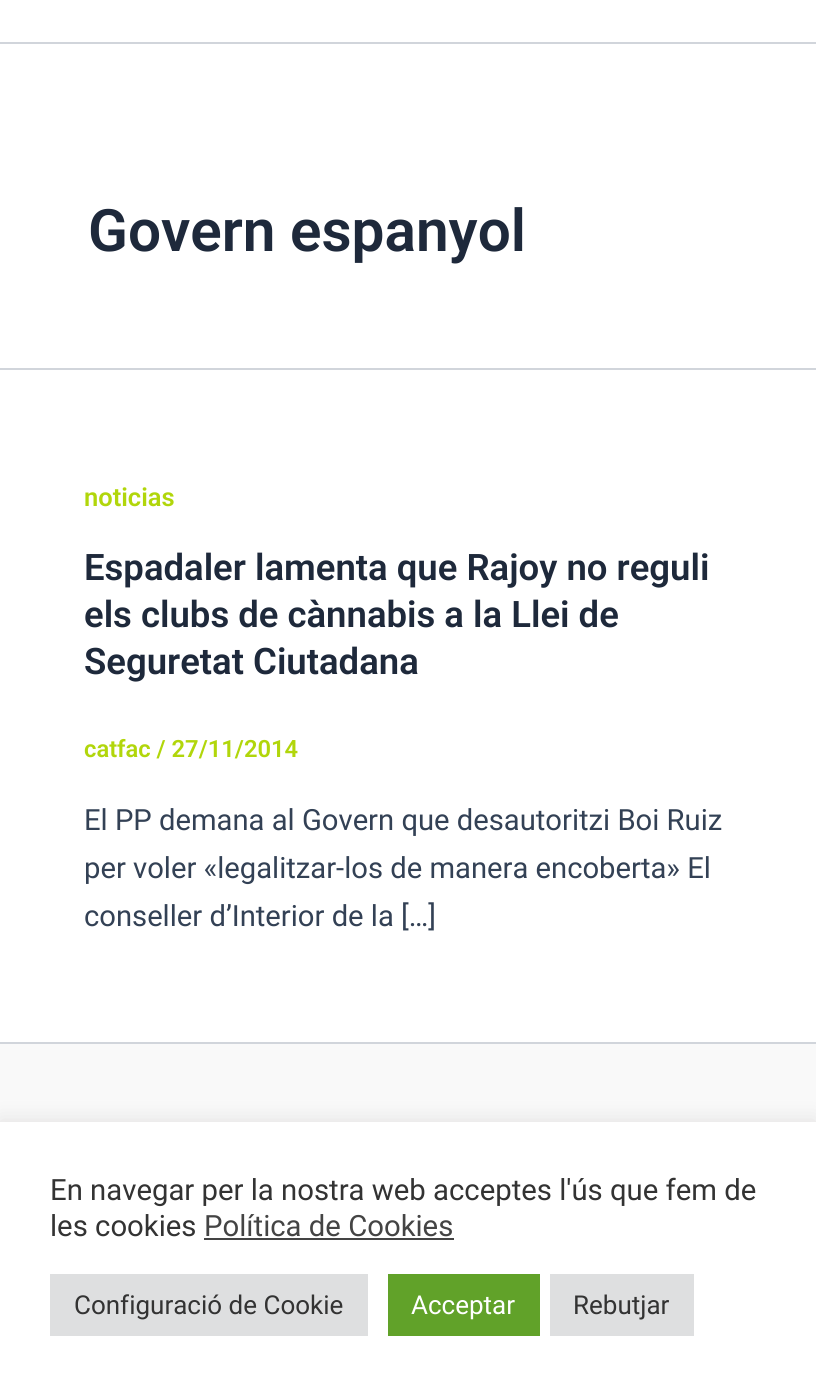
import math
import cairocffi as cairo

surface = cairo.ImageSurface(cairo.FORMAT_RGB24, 816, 1395)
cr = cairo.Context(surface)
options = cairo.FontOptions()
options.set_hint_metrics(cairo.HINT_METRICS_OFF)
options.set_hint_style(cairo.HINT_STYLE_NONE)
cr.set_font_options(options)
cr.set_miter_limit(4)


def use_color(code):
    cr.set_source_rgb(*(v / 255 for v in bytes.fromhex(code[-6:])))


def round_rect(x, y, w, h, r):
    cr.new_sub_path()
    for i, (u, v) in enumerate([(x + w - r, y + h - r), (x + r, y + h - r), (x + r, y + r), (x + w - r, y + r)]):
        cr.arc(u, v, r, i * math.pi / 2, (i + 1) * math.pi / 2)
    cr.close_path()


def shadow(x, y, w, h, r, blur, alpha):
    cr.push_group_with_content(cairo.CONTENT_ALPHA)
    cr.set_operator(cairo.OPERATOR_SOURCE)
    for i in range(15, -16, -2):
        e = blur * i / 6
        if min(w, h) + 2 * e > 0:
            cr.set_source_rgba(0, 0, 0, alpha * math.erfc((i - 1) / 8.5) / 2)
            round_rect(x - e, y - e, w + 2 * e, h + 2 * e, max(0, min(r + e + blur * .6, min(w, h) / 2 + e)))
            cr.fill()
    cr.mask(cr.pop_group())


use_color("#ffffff")
cr.paint()
use_color("#d1d5db")
cr.rectangle(0, 42, 816, 2)
cr.fill()
cr.rectangle(0, 368, 816, 2)
cr.fill()
cr.select_font_face("Roboto SemiBold")
cr.set_font_size(58.5)
use_color("#1e293b")
cr.move_to(88, 251)
cr.show_text("Govern espanyol")
cr.set_font_size(25.5)
use_color("#b1d60b")
cr.move_to(84, 506)
cr.show_text("noticias")
cr.set_font_size(36.5)
use_color("#1e293b")
cr.move_to(84, 580)
cr.show_text("Espadaler lamenta que Rajoy no reguli")
cr.move_to(84, 627)
cr.show_text("els clubs de cànnabis a la Llei de")
cr.move_to(84, 674)
cr.show_text("Seguretat Ciutadana")
cr.set_font_size(23.75)
use_color("#b1d60b")
cr.move_to(84, 757)
cr.show_text("catfac / 27/11/2014")
cr.select_font_face("Roboto")
cr.set_font_size(29.2)
use_color("#334155")
cr.move_to(84, 830)
cr.show_text("El PP demana al Govern que desautoritzi Boi Ruiz")
cr.move_to(84, 878)
cr.show_text("per voler «legalitzar-los de manera encoberta» El")
cr.move_to(84, 926)
cr.show_text("conseller d’Interior de la […]")
use_color("#f9f9f9")
cr.rectangle(0, 1044, 816, 78)
cr.fill()
use_color("#d1d5db")
cr.rectangle(0, 1042, 816, 2)
cr.fill()
use_color("#acabab")
shadow(0, 1120, 816, 274, 0, 10, 0.3)
use_color("#ffffff")
cr.rectangle(0, 1122, 816, 273)
cr.fill()
cr.set_font_size(29.3)
use_color("#333333")
cr.move_to(50, 1200)
cr.show_text("En navegar per la nostra web acceptes l'ús que fem de")
cr.move_to(50, 1236)
cr.show_text("les cookies")
use_color("#444444")
cr.move_to(204, 1236)
cr.show_text("Política de Cookies")
cr.rectangle(204, 1238, 250, 2)
cr.fill()
use_color("#dedfe0")
cr.rectangle(50, 1274, 318, 62)
cr.fill()
cr.set_font_size(26)
use_color("#333333")
cr.move_to(74, 1314)
cr.show_text("Configuració de Cookie")
use_color("#61a229")
cr.rectangle(388, 1274, 152, 62)
cr.fill()
use_color("#ffffff")
cr.move_to(411, 1314)
cr.show_text("Acceptar")
use_color("#dedfe0")
cr.rectangle(550, 1274, 144, 62)
cr.fill()
use_color("#333333")
cr.move_to(573, 1314)
cr.show_text("Rebutjar")
surface.write_to_png("result.png")
